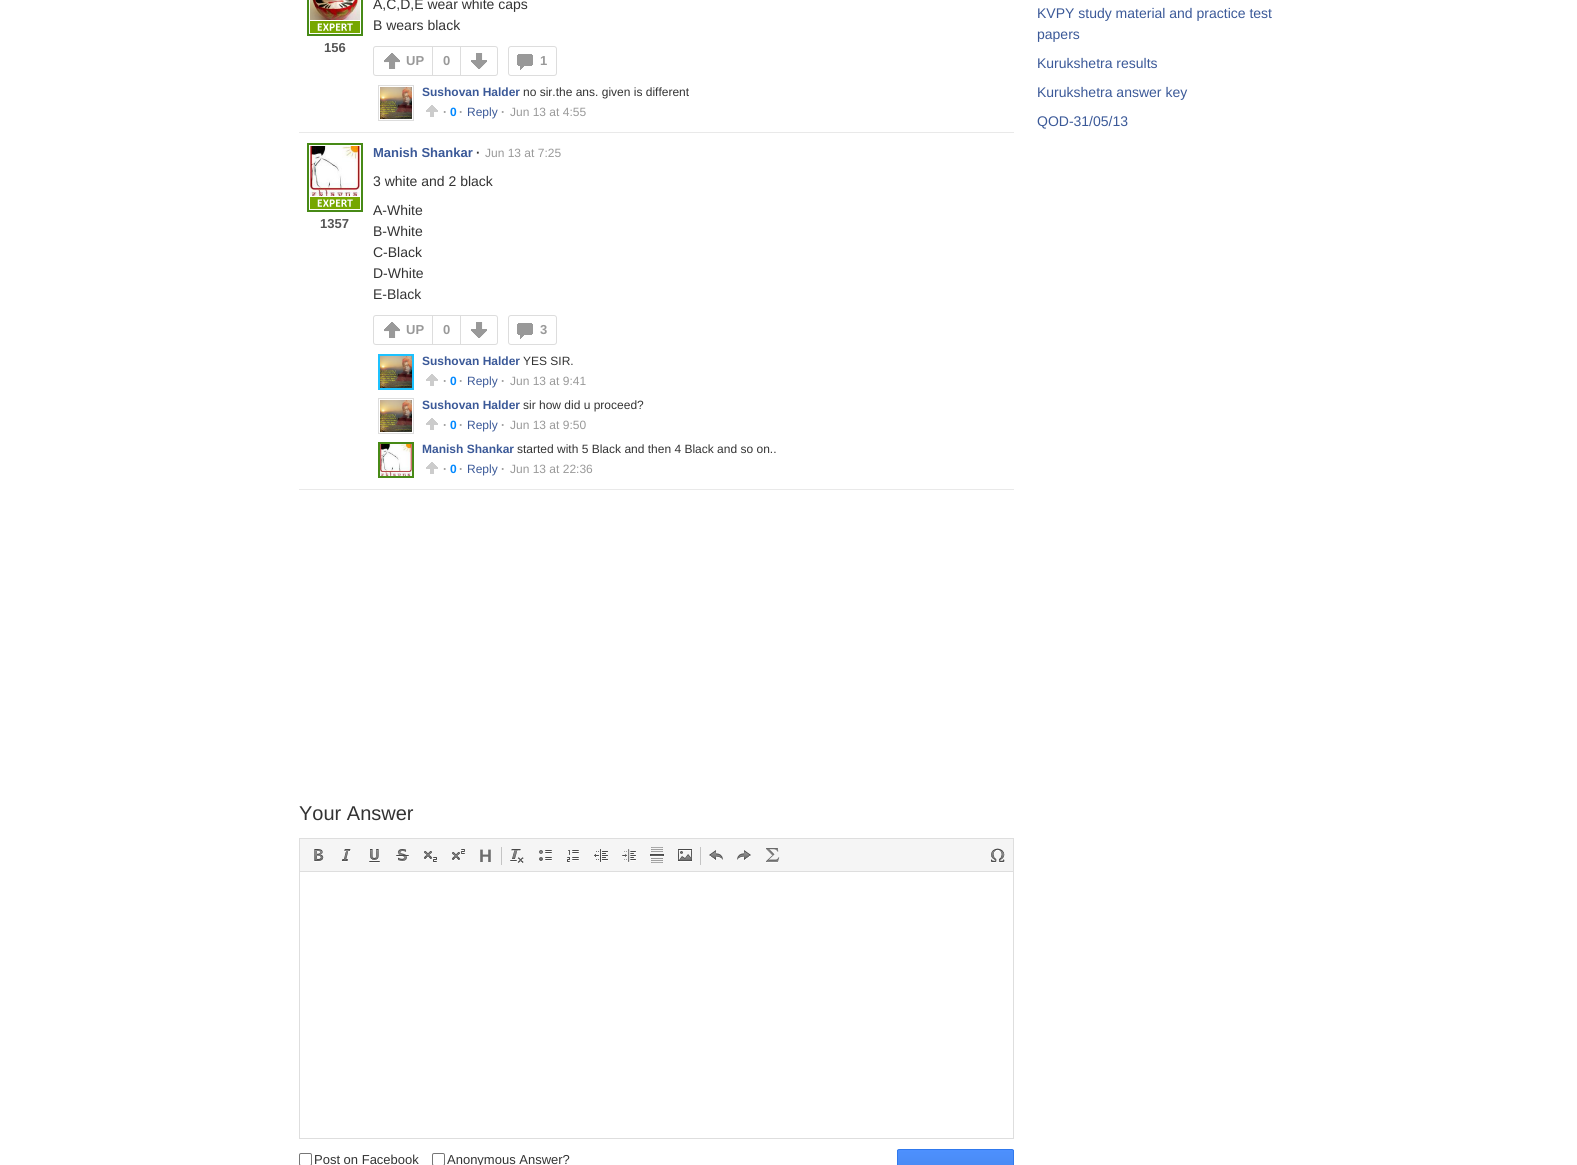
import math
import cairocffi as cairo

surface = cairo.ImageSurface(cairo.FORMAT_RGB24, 1577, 1165)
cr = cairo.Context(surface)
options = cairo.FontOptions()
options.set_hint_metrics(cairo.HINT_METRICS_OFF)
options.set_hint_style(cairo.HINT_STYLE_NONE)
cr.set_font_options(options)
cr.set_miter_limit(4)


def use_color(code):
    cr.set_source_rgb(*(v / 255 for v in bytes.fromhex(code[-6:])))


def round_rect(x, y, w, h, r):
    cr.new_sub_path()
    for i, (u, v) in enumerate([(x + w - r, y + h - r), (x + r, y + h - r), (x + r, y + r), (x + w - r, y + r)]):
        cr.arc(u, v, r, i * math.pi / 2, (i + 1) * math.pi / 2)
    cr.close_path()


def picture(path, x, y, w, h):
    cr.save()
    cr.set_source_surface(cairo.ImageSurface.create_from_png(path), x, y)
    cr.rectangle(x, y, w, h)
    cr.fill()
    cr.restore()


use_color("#ffffff")
cr.paint()
use_color("#e9e9e9")
cr.rectangle(299, 132, 715, 1)
cr.fill()
cr.select_font_face("Liberation Sans")
cr.set_font_size(14)
use_color("#333333")
cr.move_to(373, 9)
cr.show_text("A,C,D,E wear white caps")
cr.move_to(373, 30)
cr.show_text("B wears black")
picture("img1.png", 310, 0, 50, 33)
cr.rectangle(308, -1, 54, 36)
use_color("#478a16")
cr.stroke()
cr.select_font_face("Liberation Sans", cairo.FONT_SLANT_NORMAL, cairo.FONT_WEIGHT_BOLD)
cr.set_font_size(13)
use_color("#555555")
cr.move_to(324, 52)
cr.show_text("156")
picture("img2.png", 384, 53, 16, 16)
cr.new_path()
cr.move_to(376, 46.5)
cr.line_to(432.5, 46.5)
cr.line_to(432.5, 75.5)
cr.line_to(376, 75.5)
cr.curve_to(374.5, 75.5, 373.5, 74.5, 373.5, 73)
cr.line_to(373.5, 49)
cr.curve_to(373.5, 47.5, 374.5, 46.5, 376, 46.5)
cr.close_path()
use_color("#dddddd")
cr.set_line_width(1)
cr.stroke()
use_color("#999999")
cr.move_to(406, 65)
cr.show_text("UP")
use_color("#dddddd")
cr.rectangle(433, 46, 27, 1)
cr.fill()
cr.rectangle(433, 75, 27, 1)
cr.fill()
use_color("#999999")
cr.move_to(443, 65)
cr.show_text("0")
picture("img3.png", 471, 53, 16, 16)
cr.new_path()
cr.move_to(460.5, 46.5)
cr.line_to(495, 46.5)
cr.curve_to(496.5, 46.5, 497.5, 47.5, 497.5, 49)
cr.line_to(497.5, 73)
cr.curve_to(497.5, 74.5, 496.5, 75.5, 495, 75.5)
cr.line_to(460.5, 75.5)
cr.close_path()
use_color("#dddddd")
cr.stroke()
picture("img4.png", 517, 54, 16, 16)
round_rect(508.5, 46.5, 48, 29, 2.5)
cr.stroke()
use_color("#999999")
cr.move_to(540, 65)
cr.show_text("1")
cr.rectangle(378.5, 85.5, 35, 35)
use_color("#dddddd")
cr.stroke()
picture("img5.png", 380, 87, 32, 32)
cr.set_font_size(12)
use_color("#3b5998")
cr.move_to(422, 96)
cr.show_text("Sushovan Halder")
cr.select_font_face("Liberation Sans")
use_color("#333333")
cr.move_to(523, 96)
cr.show_text("no sir.the ans. given is different")
picture("img6.png", 426, 105, 12, 12)
cr.select_font_face("Liberation Sans", cairo.FONT_SLANT_NORMAL, cairo.FONT_WEIGHT_BOLD)
use_color("#999999")
cr.move_to(443, 116)
cr.show_text("·")
use_color("#0088ff")
cr.move_to(450, 116)
cr.show_text("0")
use_color("#999999")
cr.move_to(459, 116)
cr.show_text("·")
cr.select_font_face("Liberation Sans")
use_color("#3b5998")
cr.move_to(467, 116)
cr.show_text("Reply")
cr.select_font_face("Liberation Sans", cairo.FONT_SLANT_NORMAL, cairo.FONT_WEIGHT_BOLD)
use_color("#999999")
cr.move_to(501, 116)
cr.show_text("·")
cr.select_font_face("Liberation Sans")
cr.move_to(510, 116)
cr.show_text("Jun 13 at 4:55")
use_color("#e9e9e9")
cr.rectangle(299, 489, 715, 1)
cr.fill()
cr.select_font_face("Liberation Sans", cairo.FONT_SLANT_NORMAL, cairo.FONT_WEIGHT_BOLD)
cr.set_font_size(13)
use_color("#3b5998")
cr.move_to(373, 157)
cr.show_text("Manish Shankar")
use_color("#333333")
cr.move_to(476, 157)
cr.show_text("·")
cr.select_font_face("Liberation Sans")
cr.set_font_size(12)
use_color("#999999")
cr.move_to(485, 157)
cr.show_text("Jun 13 at 7:25")
picture("img7.png", 310, 146, 50, 63)
cr.rectangle(308, 144, 54, 67)
use_color("#478a16")
cr.set_line_width(2)
cr.stroke()
cr.select_font_face("Liberation Sans", cairo.FONT_SLANT_NORMAL, cairo.FONT_WEIGHT_BOLD)
cr.set_font_size(13)
use_color("#555555")
cr.move_to(320, 228)
cr.show_text("1357")
cr.select_font_face("Liberation Sans")
cr.set_font_size(14)
use_color("#333333")
cr.move_to(373, 186)
cr.show_text("3 white and 2 black")
cr.move_to(373, 215)
cr.show_text("A-White")
cr.move_to(373, 236)
cr.show_text("B-White")
cr.move_to(373, 257)
cr.show_text("C-Black")
cr.move_to(373, 278)
cr.show_text("D-White")
cr.move_to(373, 299)
cr.show_text("E-Black")
picture("img2.png", 384, 322, 16, 16)
cr.new_path()
cr.move_to(376, 315.5)
cr.line_to(432.5, 315.5)
cr.line_to(432.5, 344.5)
cr.line_to(376, 344.5)
cr.curve_to(374.5, 344.5, 373.5, 343.5, 373.5, 342)
cr.line_to(373.5, 318)
cr.curve_to(373.5, 316.5, 374.5, 315.5, 376, 315.5)
cr.close_path()
use_color("#dddddd")
cr.set_line_width(1)
cr.stroke()
cr.select_font_face("Liberation Sans", cairo.FONT_SLANT_NORMAL, cairo.FONT_WEIGHT_BOLD)
cr.set_font_size(13)
use_color("#999999")
cr.move_to(406, 334)
cr.show_text("UP")
use_color("#dddddd")
cr.rectangle(433, 315, 27, 1)
cr.fill()
cr.rectangle(433, 344, 27, 1)
cr.fill()
use_color("#999999")
cr.move_to(443, 334)
cr.show_text("0")
picture("img3.png", 471, 322, 16, 16)
cr.new_path()
cr.move_to(460.5, 315.5)
cr.line_to(495, 315.5)
cr.curve_to(496.5, 315.5, 497.5, 316.5, 497.5, 318)
cr.line_to(497.5, 342)
cr.curve_to(497.5, 343.5, 496.5, 344.5, 495, 344.5)
cr.line_to(460.5, 344.5)
cr.close_path()
use_color("#dddddd")
cr.stroke()
picture("img4.png", 517, 323, 16, 16)
round_rect(508.5, 315.5, 48, 29, 2.5)
cr.stroke()
use_color("#999999")
cr.move_to(540, 334)
cr.show_text("3")
cr.rectangle(379, 355, 34, 34)
use_color("#1dc2ff")
cr.set_line_width(2)
cr.stroke()
picture("img5.png", 380, 356, 32, 32)
cr.set_font_size(12)
use_color("#3b5998")
cr.move_to(422, 365)
cr.show_text("Sushovan Halder")
cr.select_font_face("Liberation Sans")
use_color("#333333")
cr.move_to(523, 365)
cr.show_text("YES SIR.")
picture("img6.png", 426, 374, 12, 12)
cr.select_font_face("Liberation Sans", cairo.FONT_SLANT_NORMAL, cairo.FONT_WEIGHT_BOLD)
use_color("#999999")
cr.move_to(443, 385)
cr.show_text("·")
use_color("#0088ff")
cr.move_to(450, 385)
cr.show_text("0")
use_color("#999999")
cr.move_to(459, 385)
cr.show_text("·")
cr.select_font_face("Liberation Sans")
use_color("#3b5998")
cr.move_to(467, 385)
cr.show_text("Reply")
cr.select_font_face("Liberation Sans", cairo.FONT_SLANT_NORMAL, cairo.FONT_WEIGHT_BOLD)
use_color("#999999")
cr.move_to(501, 385)
cr.show_text("·")
cr.select_font_face("Liberation Sans")
cr.move_to(510, 385)
cr.show_text("Jun 13 at 9:41")
cr.rectangle(378.5, 398.5, 35, 35)
use_color("#dddddd")
cr.set_line_width(1)
cr.stroke()
picture("img5.png", 380, 400, 32, 32)
cr.select_font_face("Liberation Sans", cairo.FONT_SLANT_NORMAL, cairo.FONT_WEIGHT_BOLD)
use_color("#3b5998")
cr.move_to(422, 409)
cr.show_text("Sushovan Halder")
cr.select_font_face("Liberation Sans")
use_color("#333333")
cr.move_to(523, 409)
cr.show_text("sir how did u proceed?")
picture("img6.png", 426, 418, 12, 12)
cr.select_font_face("Liberation Sans", cairo.FONT_SLANT_NORMAL, cairo.FONT_WEIGHT_BOLD)
use_color("#999999")
cr.move_to(443, 429)
cr.show_text("·")
use_color("#0088ff")
cr.move_to(450, 429)
cr.show_text("0")
use_color("#999999")
cr.move_to(459, 429)
cr.show_text("·")
cr.select_font_face("Liberation Sans")
use_color("#3b5998")
cr.move_to(467, 429)
cr.show_text("Reply")
cr.select_font_face("Liberation Sans", cairo.FONT_SLANT_NORMAL, cairo.FONT_WEIGHT_BOLD)
use_color("#999999")
cr.move_to(501, 429)
cr.show_text("·")
cr.select_font_face("Liberation Sans")
cr.move_to(510, 429)
cr.show_text("Jun 13 at 9:50")
cr.rectangle(379, 443, 34, 34)
use_color("#478a16")
cr.set_line_width(2)
cr.stroke()
picture("img8.png", 380, 444, 32, 32)
cr.select_font_face("Liberation Sans", cairo.FONT_SLANT_NORMAL, cairo.FONT_WEIGHT_BOLD)
use_color("#3b5998")
cr.move_to(422, 453)
cr.show_text("Manish Shankar")
cr.select_font_face("Liberation Sans")
use_color("#333333")
cr.move_to(517, 453)
cr.show_text("started with 5 Black and then 4 Black and so on..")
picture("img6.png", 426, 462, 12, 12)
cr.select_font_face("Liberation Sans", cairo.FONT_SLANT_NORMAL, cairo.FONT_WEIGHT_BOLD)
use_color("#999999")
cr.move_to(443, 473)
cr.show_text("·")
use_color("#0088ff")
cr.move_to(450, 473)
cr.show_text("0")
use_color("#999999")
cr.move_to(459, 473)
cr.show_text("·")
cr.select_font_face("Liberation Sans")
use_color("#3b5998")
cr.move_to(467, 473)
cr.show_text("Reply")
cr.select_font_face("Liberation Sans", cairo.FONT_SLANT_NORMAL, cairo.FONT_WEIGHT_BOLD)
use_color("#999999")
cr.move_to(501, 473)
cr.show_text("·")
cr.select_font_face("Liberation Sans")
cr.move_to(510, 473)
cr.show_text("Jun 13 at 22:36")
cr.set_font_size(20)
use_color("#333333")
cr.move_to(299, 820)
cr.show_text("Your Answer")
use_color("#f5f5f5")
cr.rectangle(299.5, 838.5, 714, 33)
cr.fill_preserve()
use_color("#dedede")
cr.set_line_width(1)
cr.stroke()
picture("img9.png", 314, 849, 10, 13)
picture("img10.png", 341, 849, 10, 13)
picture("img11.png", 369, 849, 11, 14)
picture("img12.png", 396, 849, 13, 13)
picture("img13.png", 424, 851, 13, 12)
picture("img14.png", 452, 849, 13, 12)
cr.select_font_face("Liberation Sans", cairo.FONT_SLANT_NORMAL, cairo.FONT_WEIGHT_BOLD)
cr.set_font_size(18)
use_color("#6d6d6d")
cr.move_to(479, 862)
cr.show_text("H")
use_color("#c4c4c4")
cr.rectangle(501, 847, 1, 18)
cr.fill()
picture("img15.png", 510, 849, 14, 14)
picture("img16.png", 539, 850, 13, 12)
picture("img17.png", 567, 850, 12, 13)
picture("img18.png", 594, 849, 14, 14)
picture("img19.png", 622, 849, 14, 14)
picture("img20.png", 650, 847, 14, 16)
picture("img21.png", 678, 849, 14, 13)
cr.rectangle(700, 847, 1, 18)
cr.fill()
picture("img22.png", 709, 850, 14, 11)
picture("img23.png", 737, 850, 14, 11)
picture("img24.png", 766, 848, 14, 15)
picture("img25.png", 991, 848, 14, 15)
use_color("#dedede")
cr.rectangle(1013, 872, 1, 267)
cr.fill()
cr.rectangle(299, 1138, 715, 1)
cr.fill()
cr.rectangle(299, 872, 1, 267)
cr.fill()
round_rect(299.5, 1153.5, 12, 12, 1.5)
use_color("#767676")
cr.stroke()
cr.select_font_face("Liberation Sans")
cr.set_font_size(13)
use_color("#333333")
cr.move_to(314, 1164)
cr.show_text("Post on Facebook")
round_rect(432.5, 1153.5, 12, 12, 1.5)
use_color("#767676")
cr.stroke()
use_color("#333333")
cr.move_to(447, 1164)
cr.show_text("Anonymous Answer?")
gradient = cairo.LinearGradient(956, 1150, 956, 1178)
gradient.add_color_stop_rgba(0, 0.302, 0.565, 0.996, 1)
gradient.add_color_stop_rgba(1, 0.278, 0.529, 0.929, 1)
cr.set_source(gradient)
cr.rectangle(897, 1150, 117, 15)
cr.fill()
round_rect(897.5, 1149.5, 116, 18, 1.5)
use_color("#3079ed")
cr.stroke()
cr.set_font_size(14)
use_color("#3b5998")
cr.move_to(1037, 18)
cr.show_text("KVPY study material and practice test")
cr.move_to(1037, 39)
cr.show_text("papers")
cr.move_to(1037, 68)
cr.show_text("Kurukshetra results")
cr.move_to(1037, 97)
cr.show_text("Kurukshetra answer key")
cr.move_to(1037, 126)
cr.show_text("QOD-31/05/13")
surface.write_to_png("result.png")
